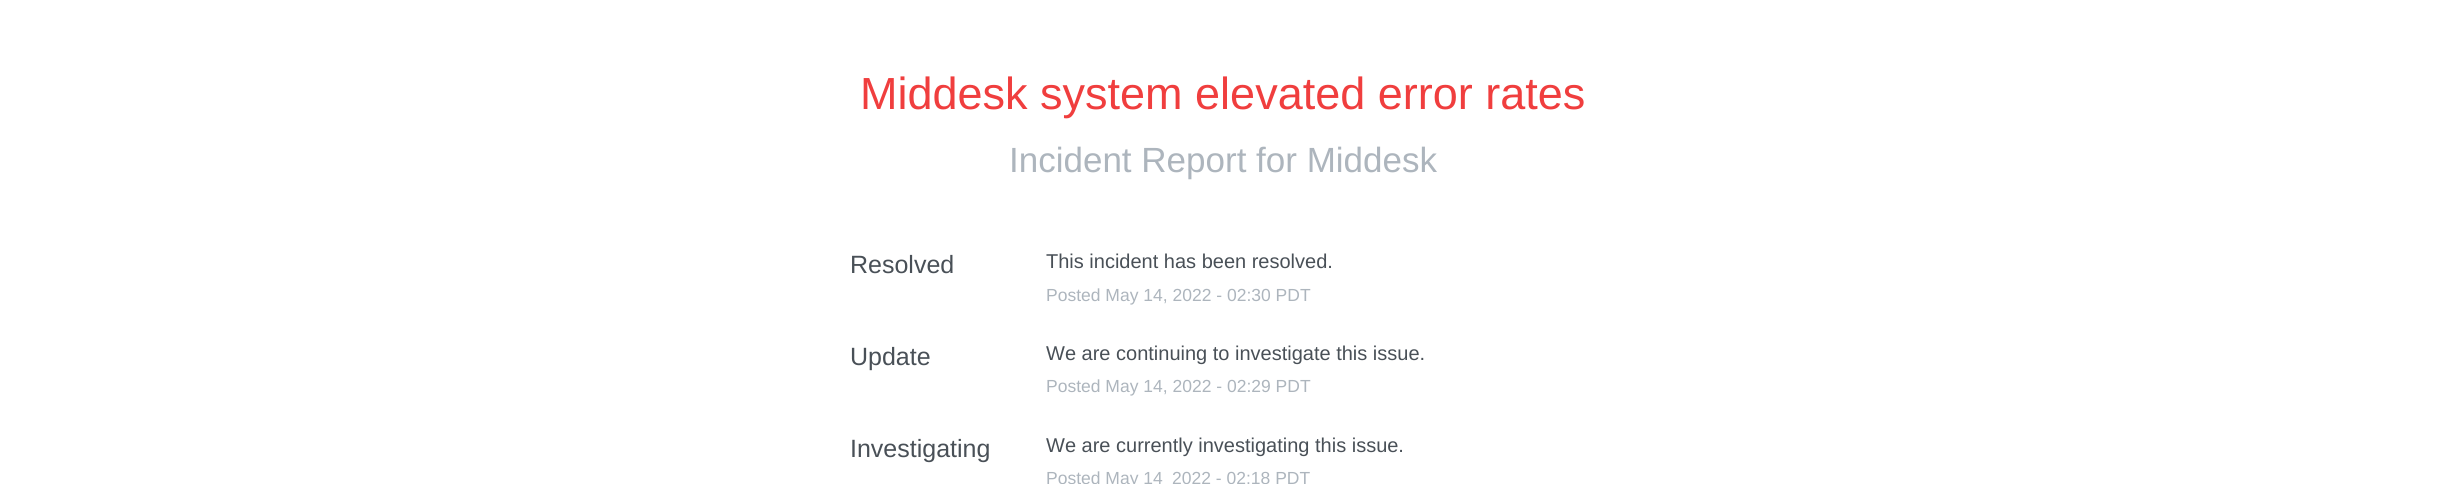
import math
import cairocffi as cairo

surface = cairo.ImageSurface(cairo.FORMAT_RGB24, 2446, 484)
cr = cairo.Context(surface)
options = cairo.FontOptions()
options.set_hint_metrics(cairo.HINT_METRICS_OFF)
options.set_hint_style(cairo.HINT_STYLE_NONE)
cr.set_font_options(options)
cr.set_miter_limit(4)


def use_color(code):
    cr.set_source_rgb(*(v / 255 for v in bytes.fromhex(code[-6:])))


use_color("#ffffff")
cr.paint()
cr.select_font_face("Liberation Sans")
cr.set_font_size(45)
use_color("#f03e3e")
cr.move_to(860, 109)
cr.show_text("Middesk system elevated error rates")
cr.set_font_size(35)
use_color("#adb5bd")
cr.move_to(1009, 172)
cr.show_text("Incident Report for Middesk")
cr.set_font_size(25)
use_color("#495057")
cr.move_to(850, 273)
cr.show_text("Resolved")
cr.set_font_size(20)
cr.move_to(1046, 268)
cr.show_text("This incident has been resolved.")
cr.set_font_size(17.5)
use_color("#adb5bd")
cr.move_to(1046, 301)
cr.show_text("Posted May 14, 2022 - 02:30 PDT")
cr.set_font_size(25)
use_color("#495057")
cr.move_to(850, 365)
cr.show_text("Update")
cr.set_font_size(20)
cr.move_to(1046, 360)
cr.show_text("We are continuing to investigate this issue.")
cr.set_font_size(17.5)
use_color("#adb5bd")
cr.move_to(1046, 392)
cr.show_text("Posted May 14, 2022 - 02:29 PDT")
cr.set_font_size(25)
use_color("#495057")
cr.move_to(850, 457)
cr.show_text("Investigating")
cr.set_font_size(20)
cr.move_to(1046, 452)
cr.show_text("We are currently investigating this issue.")
cr.set_font_size(17.5)
use_color("#adb5bd")
cr.move_to(1046, 484)
cr.show_text("Posted May 14")
cr.move_to(1172, 484)
cr.show_text("2022 - 02:18 PDT")
surface.write_to_png("result.png")
